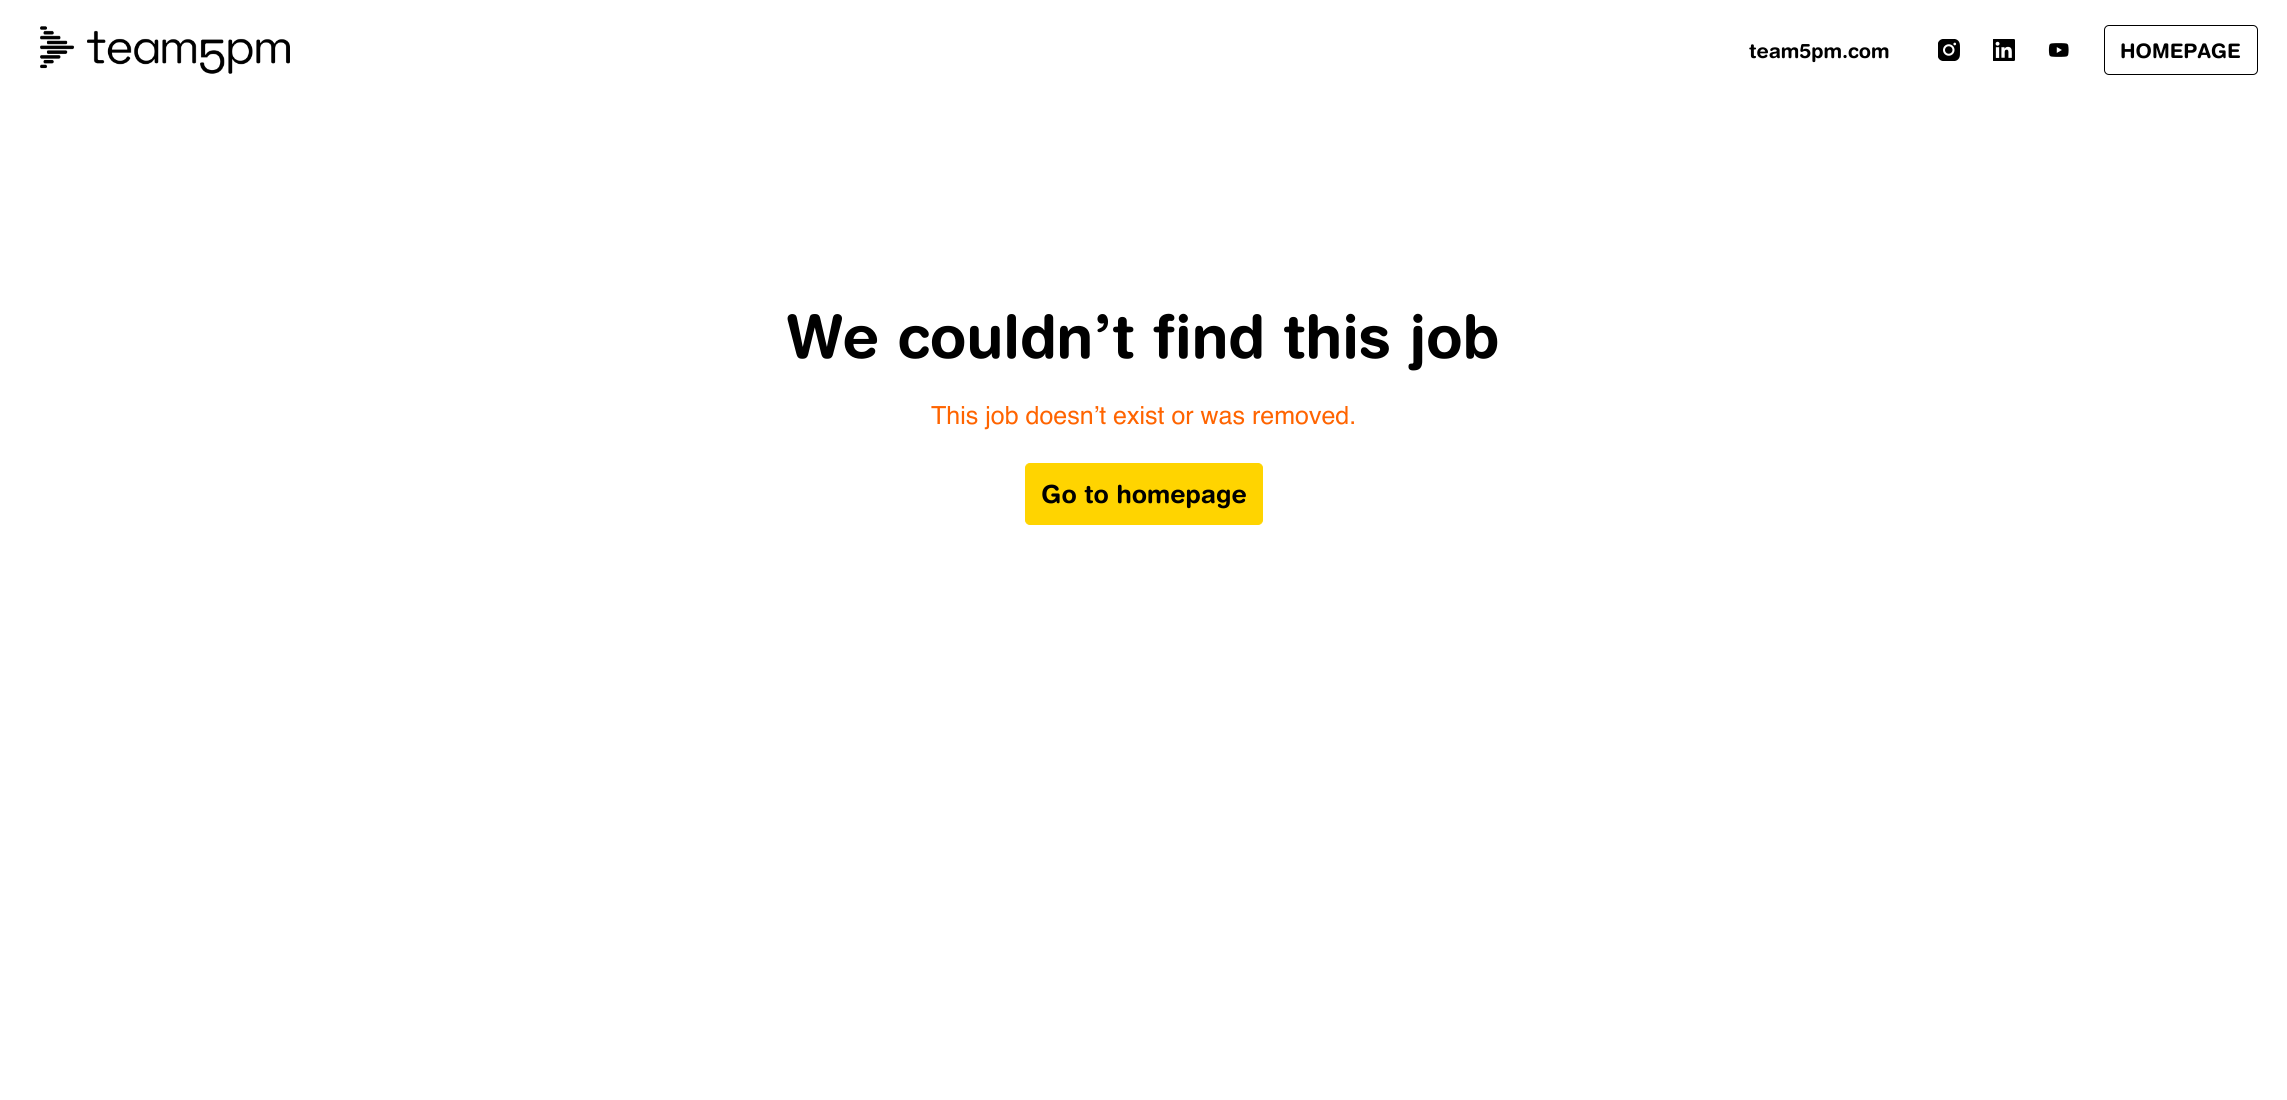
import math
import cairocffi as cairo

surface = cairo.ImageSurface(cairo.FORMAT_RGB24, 2287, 1100)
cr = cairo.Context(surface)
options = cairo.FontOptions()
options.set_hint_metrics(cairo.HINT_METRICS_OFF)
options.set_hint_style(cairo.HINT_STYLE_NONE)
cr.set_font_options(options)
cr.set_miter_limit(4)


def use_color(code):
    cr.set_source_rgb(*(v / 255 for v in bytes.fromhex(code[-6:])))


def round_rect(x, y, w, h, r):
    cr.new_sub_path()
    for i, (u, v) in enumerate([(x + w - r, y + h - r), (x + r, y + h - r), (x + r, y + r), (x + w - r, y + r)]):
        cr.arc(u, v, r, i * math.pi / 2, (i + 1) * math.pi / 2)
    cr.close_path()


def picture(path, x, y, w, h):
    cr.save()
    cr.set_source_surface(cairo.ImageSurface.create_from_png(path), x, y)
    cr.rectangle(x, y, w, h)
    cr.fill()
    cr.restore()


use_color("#ffffff")
cr.paint()
picture("img1.png", 40, 26, 250, 48)
cr.select_font_face("Helvetica", cairo.FONT_SLANT_NORMAL, cairo.FONT_WEIGHT_BOLD)
cr.set_font_size(20)
use_color("#000000")
cr.move_to(1749, 58)
cr.show_text("team5pm.com")
picture("img2.png", 1938, 39, 22, 22)
picture("img3.png", 1993, 39, 22, 22)
picture("img4.png", 2048, 43, 21, 14)
round_rect(2104.5, 25.5, 153, 49, 4.5)
cr.set_line_width(1)
cr.stroke()
cr.move_to(2120, 58)
cr.show_text("HOMEPAGE")
cr.set_font_size(60)
cr.move_to(787, 358)
cr.show_text("We couldn’t find this job")
cr.select_font_face("Helvetica")
cr.set_font_size(25)
use_color("#ff6400")
cr.move_to(931, 424)
cr.show_text("This job doesn’t exist or was removed.")
use_color("#ffd400")
round_rect(1025.5, 463.5, 237, 61, 4.5)
cr.fill_preserve()
cr.stroke()
cr.select_font_face("Helvetica", cairo.FONT_SLANT_NORMAL, cairo.FONT_WEIGHT_BOLD)
use_color("#000000")
cr.move_to(1041, 503)
cr.show_text("Go to homepage")
surface.write_to_png("result.png")
